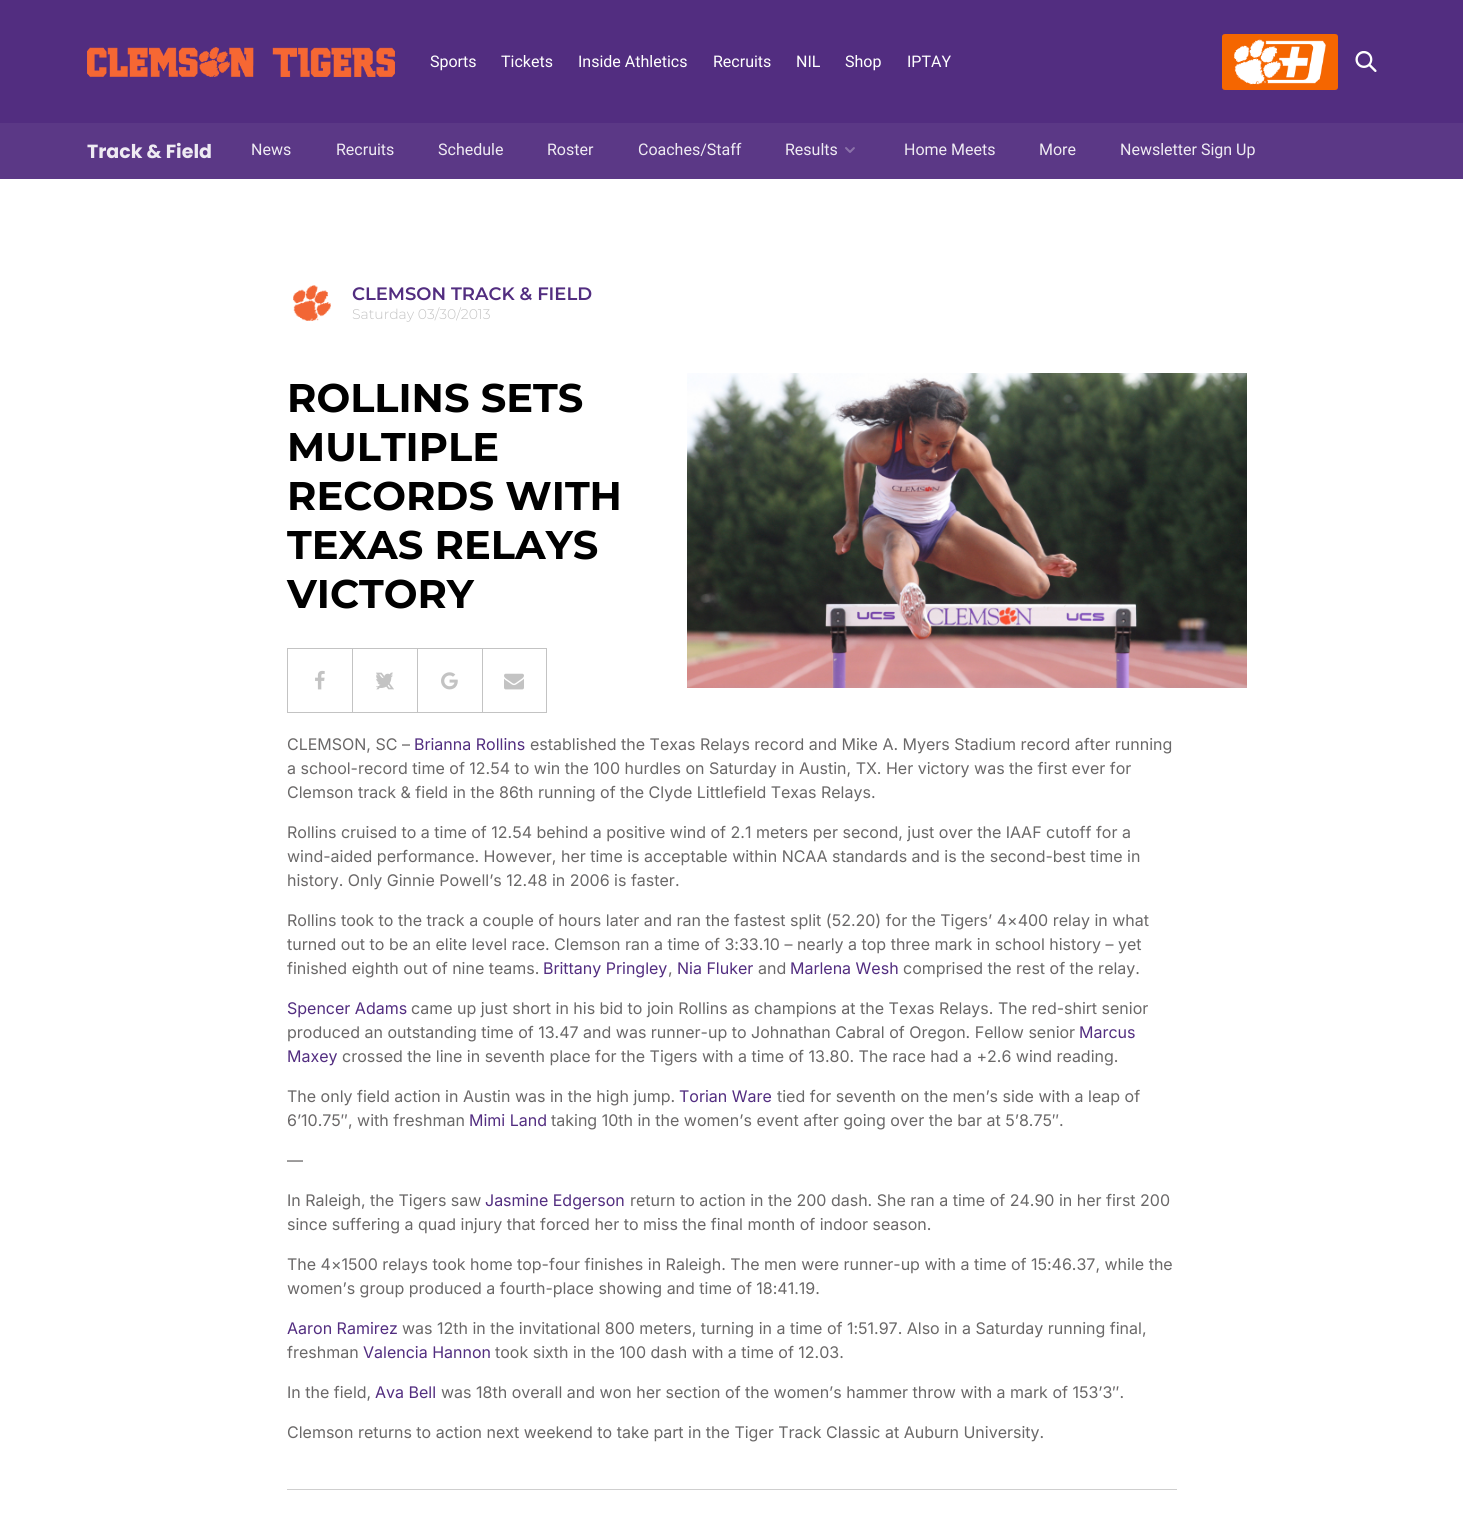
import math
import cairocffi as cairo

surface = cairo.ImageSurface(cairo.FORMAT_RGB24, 1463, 1520)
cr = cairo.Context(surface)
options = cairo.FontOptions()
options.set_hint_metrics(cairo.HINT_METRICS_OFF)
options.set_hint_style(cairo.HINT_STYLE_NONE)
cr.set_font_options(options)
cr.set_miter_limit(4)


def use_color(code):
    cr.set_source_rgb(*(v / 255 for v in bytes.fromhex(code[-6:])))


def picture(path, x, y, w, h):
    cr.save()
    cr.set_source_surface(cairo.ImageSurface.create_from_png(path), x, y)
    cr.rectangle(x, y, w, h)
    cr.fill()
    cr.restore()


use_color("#ffffff")
cr.paint()
use_color("#522d80")
cr.rectangle(0, 0, 1463, 123)
cr.fill()
picture("img1.png", 87, 47, 308, 30)
cr.select_font_face("Roboto")
cr.set_font_size(16)
use_color("#ffffff")
cr.move_to(430, 67)
cr.show_text("Sports")
cr.move_to(501, 67)
cr.show_text("Tickets")
cr.move_to(578, 67)
cr.show_text("Inside Athletics")
cr.move_to(713, 67)
cr.show_text("Recruits")
cr.move_to(796, 67)
cr.show_text("NIL")
cr.move_to(845, 67)
cr.show_text("Shop")
cr.move_to(907, 67)
cr.show_text("IPTAY")
picture("img2.png", 1222, 34, 116, 56)
picture("img3.png", 1355, 51, 22, 21)
use_color("#5b3886")
cr.rectangle(87, 123, 1376, 56)
cr.fill()
cr.select_font_face("Poppins", cairo.FONT_SLANT_NORMAL, cairo.FONT_WEIGHT_BOLD)
cr.set_font_size(19)
use_color("#efebf3")
cr.move_to(87, 158)
cr.show_text("Track & Field")
use_color("#5b3886")
cr.rectangle(0, 123, 87, 56)
cr.fill()
cr.select_font_face("Roboto")
cr.set_font_size(16)
use_color("#efebf3")
cr.move_to(251, 155)
cr.show_text("News")
cr.move_to(336, 155)
cr.show_text("Recruits")
cr.move_to(438, 155)
cr.show_text("Schedule")
cr.move_to(547, 155)
cr.show_text("Roster")
cr.move_to(638, 155)
cr.show_text("Coaches/Staff")
cr.move_to(785, 155)
cr.show_text("Results")
picture("img4.png", 845, 147, 10, 6)
cr.move_to(904, 155)
cr.show_text("Home Meets")
cr.move_to(1039, 155)
cr.show_text("More")
cr.move_to(1120, 155)
cr.show_text("Newsletter Sign Up")
picture("img5.png", 293, 285, 38, 36)
cr.select_font_face("Montserrat SemiBold")
cr.set_font_size(18)
use_color("#522d80")
cr.move_to(352, 300)
cr.show_text("CLEMSON TRACK & FIELD")
cr.select_font_face("Montserrat Light")
cr.set_font_size(14)
use_color("#c3c3c3")
cr.move_to(352, 319)
cr.show_text("Saturday 03/30/2013")
use_color("#cfcfcf")
cr.rectangle(287, 1489, 890, 1)
cr.fill()
cr.select_font_face("Montserrat", cairo.FONT_SLANT_NORMAL, cairo.FONT_WEIGHT_BOLD)
cr.set_font_size(40)
use_color("#000000")
cr.move_to(287, 412)
cr.show_text("ROLLINS SETS")
cr.move_to(287, 461)
cr.show_text("MULTIPLE")
cr.move_to(287, 510)
cr.show_text("RECORDS WITH")
cr.move_to(287, 559)
cr.show_text("TEXAS RELAYS")
cr.move_to(287, 608)
cr.show_text("VICTORY")
picture("img6.png", 687, 373, 560, 315)
use_color("#c3c3c3")
cr.rectangle(287, 648, 195, 1)
cr.fill()
cr.rectangle(287, 712, 195, 1)
cr.fill()
cr.rectangle(287, 648, 1, 65)
cr.fill()
picture("img7.png", 315, 670, 10, 20)
cr.rectangle(352, 648, 1, 65)
cr.fill()
picture("img8.png", 376, 672, 18, 18)
picture("img9.png", 376, 673, 17, 15)
cr.rectangle(417, 648, 1, 65)
cr.fill()
picture("img10.png", 441, 672, 17, 18)
cr.rectangle(482.5, 648.5, 64, 64)
cr.set_line_width(1)
cr.stroke()
picture("img11.png", 504, 673, 20, 17)
cr.select_font_face("Inter")
cr.set_font_size(16)
use_color("#6a6868")
cr.move_to(287, 750)
cr.show_text("CLEMSON, SC –")
use_color("#522d80")
cr.move_to(414, 750)
cr.show_text("Brianna Rollins")
use_color("#6a6868")
cr.move_to(530, 750)
cr.show_text("established the Texas Relays record and Mike A. Myers Stadium record after running")
cr.move_to(287, 774)
cr.show_text("a school-record time of 12.54 to win the 100 hurdles on Saturday in Austin, TX. Her victory was the first ever for")
cr.move_to(287, 798)
cr.show_text("Clemson track & field in the 86th running of the Clyde Littlefield Texas Relays.")
cr.move_to(287, 838)
cr.show_text("Rollins cruised to a time of 12.54 behind a positive wind of 2.1 meters per second, just over the IAAF cutoff for a")
cr.move_to(287, 862)
cr.show_text("wind-aided performance. However, her time is acceptable within NCAA standards and is the second-best time in")
cr.move_to(287, 886)
cr.show_text("history. Only Ginnie Powell’s 12.48 in 2006 is faster.")
cr.move_to(287, 926)
cr.show_text("Rollins took to the track a couple of hours later and ran the fastest split (52.20) for the Tigers’ 4×400 relay in what")
cr.move_to(287, 950)
cr.show_text("turned out to be an elite level race. Clemson ran a time of 3:33.10 – nearly a top three mark in school history – yet")
cr.move_to(287, 974)
cr.show_text("finished eighth out of nine teams.")
use_color("#522d80")
cr.move_to(543, 974)
cr.show_text("Brittany Pringley")
use_color("#6a6868")
cr.move_to(668, 974)
cr.show_text(",")
use_color("#522d80")
cr.move_to(677, 974)
cr.show_text("Nia Fluker")
use_color("#6a6868")
cr.move_to(758, 974)
cr.show_text("and")
use_color("#522d80")
cr.move_to(790, 974)
cr.show_text("Marlena Wesh")
use_color("#6a6868")
cr.move_to(903, 974)
cr.show_text("comprised the rest of the relay.")
use_color("#522d80")
cr.move_to(287, 1014)
cr.show_text("Spencer Adams")
use_color("#6a6868")
cr.move_to(411, 1014)
cr.show_text("came up just short in his bid to join Rollins as champions at the Texas Relays. The red-shirt senior")
cr.move_to(287, 1038)
cr.show_text("produced an outstanding time of 13.47 and was runner-up to Johnathan Cabral of Oregon. Fellow senior")
use_color("#522d80")
cr.move_to(1079, 1038)
cr.show_text("Marcus")
cr.move_to(287, 1062)
cr.show_text("Maxey")
use_color("#6a6868")
cr.move_to(342, 1062)
cr.show_text("crossed the line in seventh place for the Tigers with a time of 13.80. The race had a +2.6 wind reading.")
cr.move_to(287, 1102)
cr.show_text("The only field action in Austin was in the high jump.")
use_color("#522d80")
cr.move_to(679, 1102)
cr.show_text("Torian Ware")
use_color("#6a6868")
cr.move_to(777, 1102)
cr.show_text("tied for seventh on the men’s side with a leap of")
cr.move_to(287, 1126)
cr.show_text("6’10.75″, with freshman")
use_color("#522d80")
cr.move_to(469, 1126)
cr.show_text("Mimi Land")
use_color("#6a6868")
cr.move_to(551, 1126)
cr.show_text("taking 10th in the women’s event after going over the bar at 5’8.75″.")
cr.move_to(287, 1166)
cr.show_text("—")
cr.move_to(287, 1206)
cr.show_text("In Raleigh, the Tigers saw")
use_color("#522d80")
cr.move_to(485, 1206)
cr.show_text("Jasmine Edgerson")
use_color("#6a6868")
cr.move_to(630, 1206)
cr.show_text("return to action in the 200 dash. She ran a time of 24.90 in her first 200")
cr.move_to(287, 1230)
cr.show_text("since suffering a quad injury that forced her to miss the final month of indoor season.")
cr.move_to(287, 1270)
cr.show_text("The 4×1500 relays took home top-four finishes in Raleigh. The men were runner-up with a time of 15:46.37, while the")
cr.move_to(287, 1294)
cr.show_text("women’s group produced a fourth-place showing and time of 18:41.19.")
use_color("#522d80")
cr.move_to(287, 1334)
cr.show_text("Aaron Ramirez")
use_color("#6a6868")
cr.move_to(402, 1334)
cr.show_text("was 12th in the invitational 800 meters, turning in a time of 1:51.97. Also in a Saturday running final,")
cr.move_to(287, 1358)
cr.show_text("freshman")
use_color("#522d80")
cr.move_to(363, 1358)
cr.show_text("Valencia Hannon")
use_color("#6a6868")
cr.move_to(495, 1358)
cr.show_text("took sixth in the 100 dash with a time of 12.03.")
cr.move_to(287, 1398)
cr.show_text("In the field,")
use_color("#522d80")
cr.move_to(375, 1398)
cr.show_text("Ava Bell")
use_color("#6a6868")
cr.move_to(441, 1398)
cr.show_text("was 18th overall and won her section of the women’s hammer throw with a mark of 153’3″.")
cr.move_to(287, 1438)
cr.show_text("Clemson returns to action next weekend to take part in the Tiger Track Classic at Auburn University.")
surface.write_to_png("result.png")
